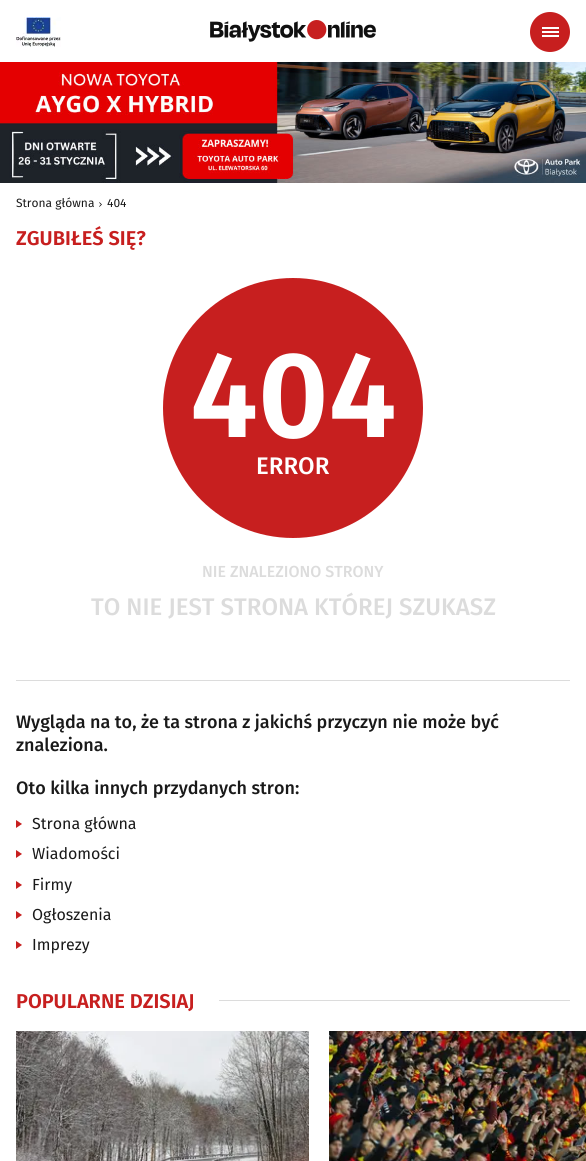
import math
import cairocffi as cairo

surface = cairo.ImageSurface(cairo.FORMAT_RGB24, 586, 1161)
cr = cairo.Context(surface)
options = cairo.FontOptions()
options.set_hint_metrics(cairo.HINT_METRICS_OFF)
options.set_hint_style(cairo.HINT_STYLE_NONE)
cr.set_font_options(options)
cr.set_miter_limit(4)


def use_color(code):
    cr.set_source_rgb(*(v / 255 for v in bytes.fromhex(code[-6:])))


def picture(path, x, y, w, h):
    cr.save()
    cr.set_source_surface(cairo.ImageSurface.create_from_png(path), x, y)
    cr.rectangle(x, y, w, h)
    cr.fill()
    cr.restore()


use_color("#ffffff")
cr.paint()
picture("img1.png", 16, 17, 45, 30)
picture("img2.png", 210, 20, 166, 22)
use_color("#c71f1f")
cr.arc(550, 32, 20, 0, 2 * math.pi)
cr.fill()
use_color("#ffffff")
cr.rectangle(542, 31, 17, 2)
cr.fill()
cr.rectangle(542, 27, 17, 2)
cr.fill()
cr.rectangle(542, 35, 17, 2)
cr.fill()
picture("img3.png", 0, 62, 586, 121)
cr.select_font_face("Fira Sans")
cr.set_font_size(12)
use_color("#191919")
cr.move_to(16, 207)
cr.show_text("Strona główna")
picture("img4.png", 99, 202, 3, 5)
cr.move_to(107, 207)
cr.show_text("404")
cr.select_font_face("Fira Sans SemiBold")
cr.set_font_size(20)
use_color("#c71f1f")
cr.move_to(16, 245)
cr.show_text("ZGUBIŁEŚ SIĘ?")
cr.new_path()
cr.arc(293, 408, 130, 0, 2 * math.pi)
cr.fill()
cr.set_font_size(122)
use_color("#ffffff")
cr.move_to(190, 437)
cr.show_text("404")
cr.select_font_face("Fira Sans Medium")
cr.set_font_size(24)
cr.move_to(256, 474)
cr.show_text("ERROR")
cr.set_font_size(16)
use_color("#dcdcdc")
cr.move_to(202, 577)
cr.show_text("NIE ZNALEZIONO STRONY")
cr.set_font_size(24)
cr.move_to(91, 615)
cr.show_text("TO NIE JEST STRONA KTÓREJ SZUKASZ")
cr.rectangle(16, 680, 554, 1)
cr.fill()
cr.set_font_size(18)
use_color("#191919")
cr.move_to(16, 728)
cr.show_text("Wygląda na to, że ta strona z jakichś przyczyn nie może być")
cr.move_to(16, 751)
cr.show_text("znaleziona.")
cr.move_to(16, 794)
cr.show_text("Oto kilka innych przydanych stron:")
use_color("#c71f1f")
cr.new_path()
cr.move_to(16, 828)
cr.line_to(16, 820)
cr.line_to(22, 824)
cr.close_path()
cr.fill()
cr.select_font_face("Fira Sans")
cr.set_font_size(16)
use_color("#191919")
cr.move_to(32, 829)
cr.show_text("Strona główna")
use_color("#c71f1f")
cr.new_path()
cr.move_to(16, 858)
cr.line_to(16, 850)
cr.line_to(22, 854)
cr.close_path()
cr.fill()
use_color("#191919")
cr.move_to(32, 859)
cr.show_text("Wiadomości")
use_color("#c71f1f")
cr.new_path()
cr.move_to(16, 889)
cr.line_to(16, 881)
cr.line_to(22, 885)
cr.close_path()
cr.fill()
use_color("#191919")
cr.move_to(32, 890)
cr.show_text("Firmy")
use_color("#c71f1f")
cr.new_path()
cr.move_to(16, 919)
cr.line_to(16, 911)
cr.line_to(22, 915)
cr.close_path()
cr.fill()
use_color("#191919")
cr.move_to(32, 920)
cr.show_text("Ogłoszenia")
use_color("#c71f1f")
cr.new_path()
cr.move_to(16, 949)
cr.line_to(16, 941)
cr.line_to(22, 945)
cr.close_path()
cr.fill()
use_color("#191919")
cr.move_to(32, 950)
cr.show_text("Imprezy")
cr.select_font_face("Fira Sans SemiBold")
cr.set_font_size(20)
use_color("#c71f1f")
cr.move_to(16, 1008)
cr.show_text("POPULARNE DZISIAJ")
use_color("#dcdcdc")
cr.rectangle(219, 1000, 351, 1)
cr.fill()
picture("img5.png", 16, 1031, 293, 130)
picture("img6.png", 329, 1031, 257, 130)
surface.write_to_png("result.png")
